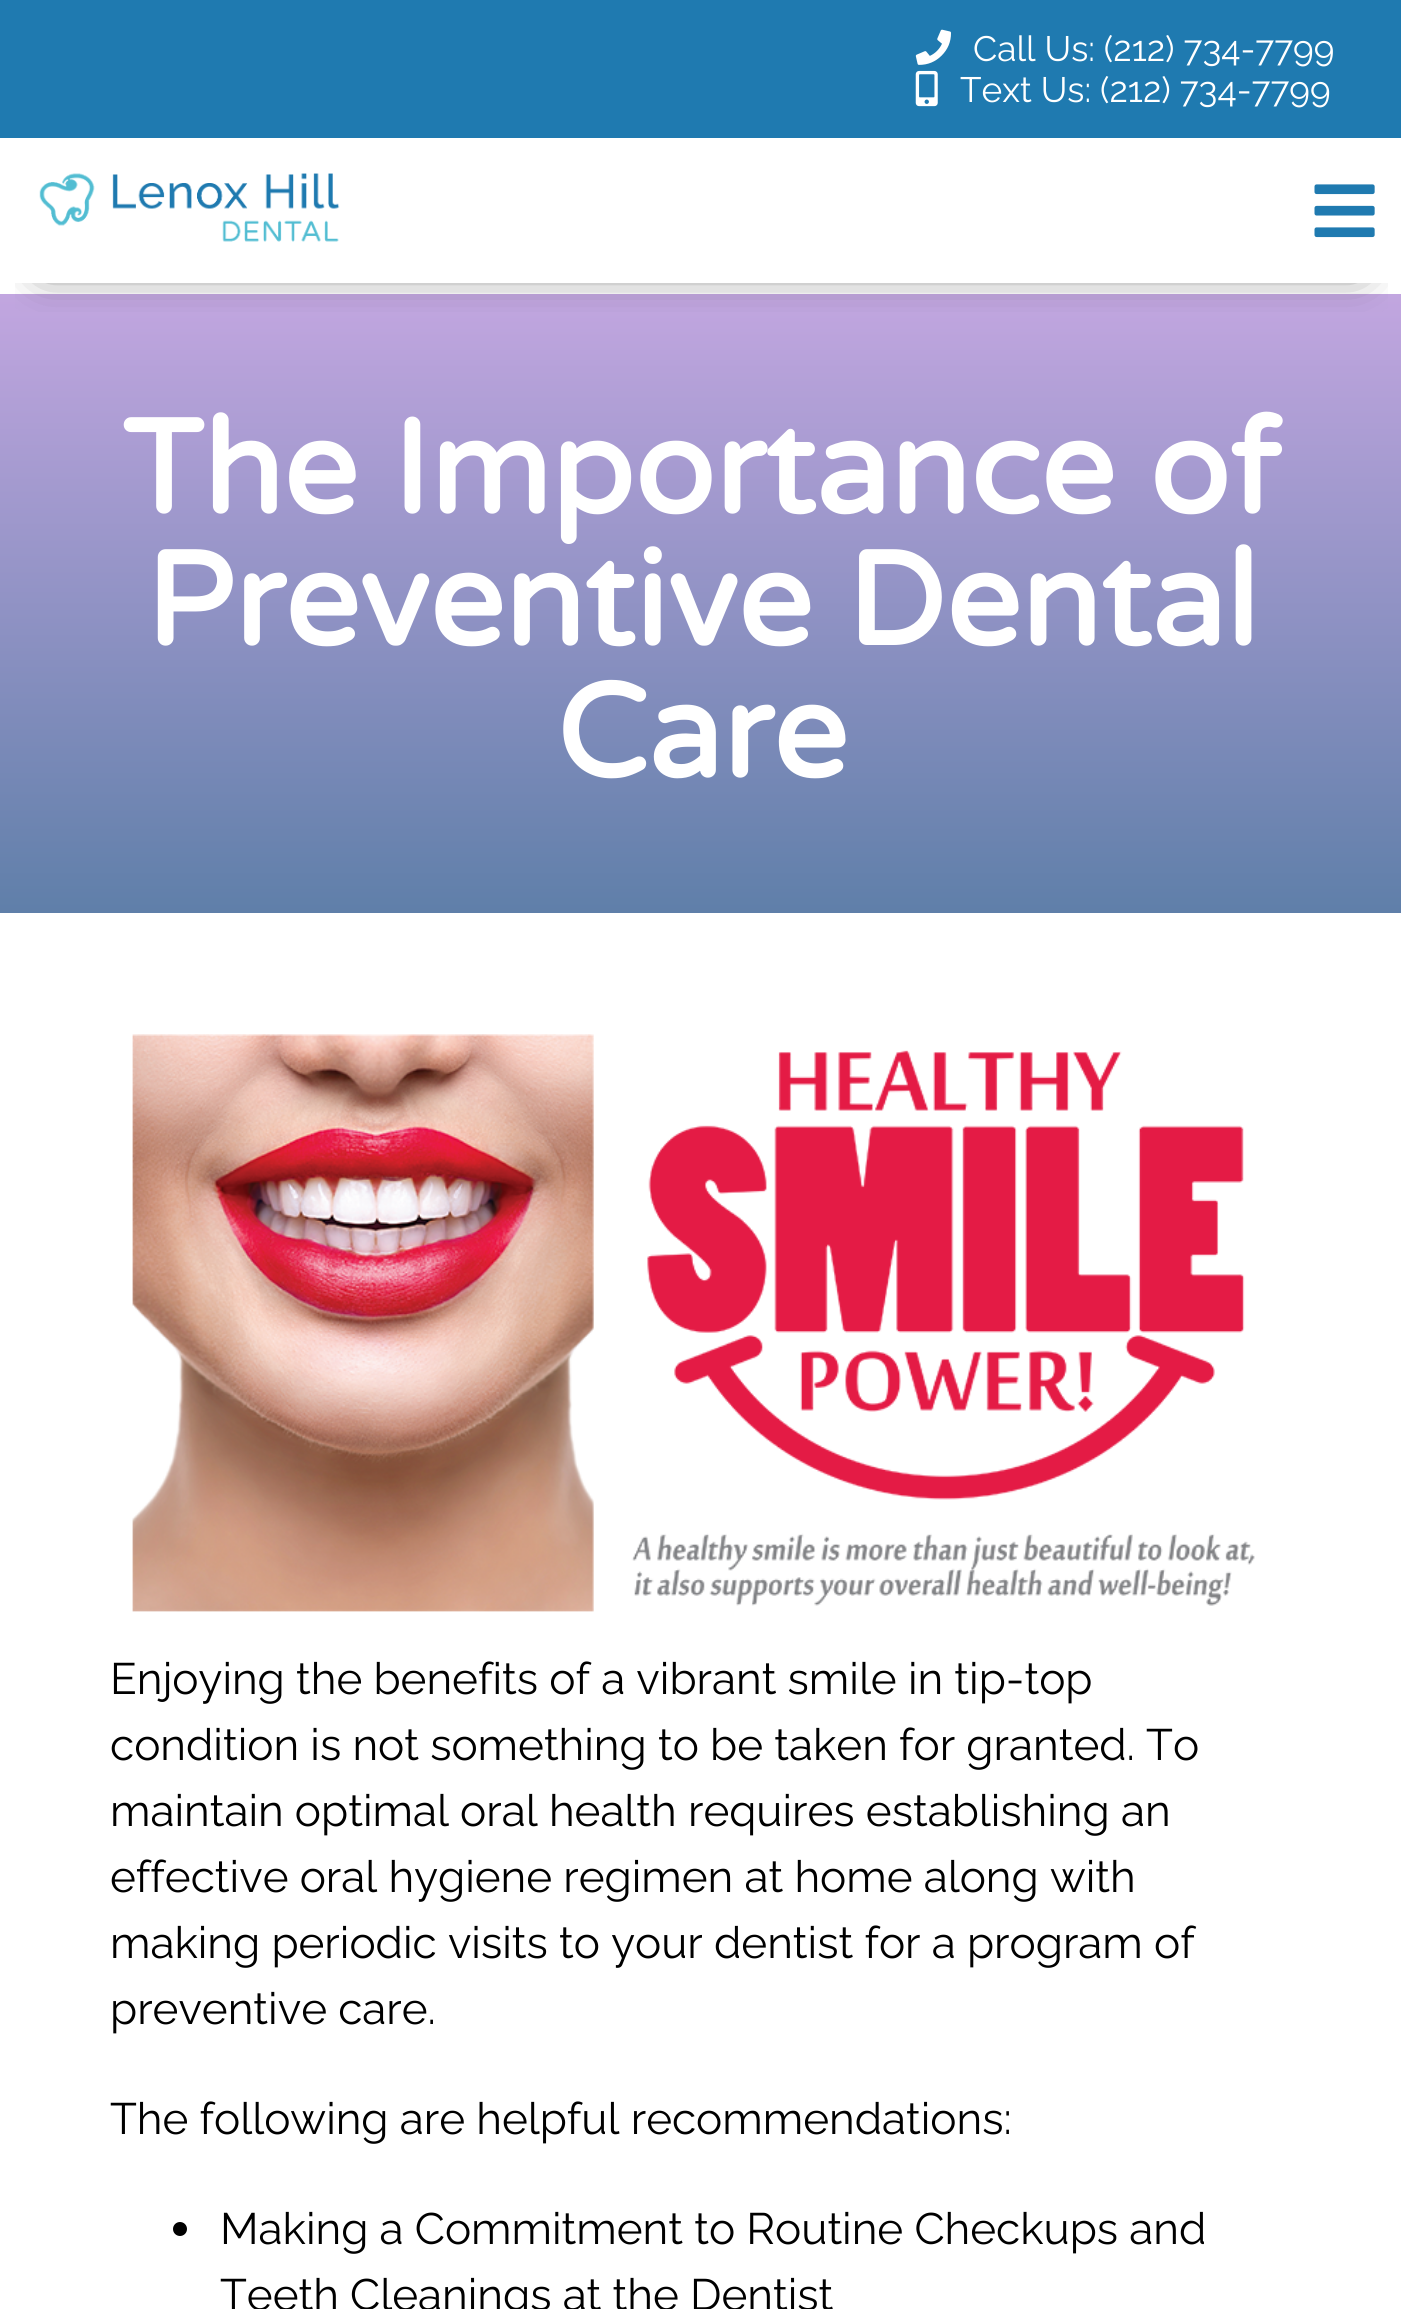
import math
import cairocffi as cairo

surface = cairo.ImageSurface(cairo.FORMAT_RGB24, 1401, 2309)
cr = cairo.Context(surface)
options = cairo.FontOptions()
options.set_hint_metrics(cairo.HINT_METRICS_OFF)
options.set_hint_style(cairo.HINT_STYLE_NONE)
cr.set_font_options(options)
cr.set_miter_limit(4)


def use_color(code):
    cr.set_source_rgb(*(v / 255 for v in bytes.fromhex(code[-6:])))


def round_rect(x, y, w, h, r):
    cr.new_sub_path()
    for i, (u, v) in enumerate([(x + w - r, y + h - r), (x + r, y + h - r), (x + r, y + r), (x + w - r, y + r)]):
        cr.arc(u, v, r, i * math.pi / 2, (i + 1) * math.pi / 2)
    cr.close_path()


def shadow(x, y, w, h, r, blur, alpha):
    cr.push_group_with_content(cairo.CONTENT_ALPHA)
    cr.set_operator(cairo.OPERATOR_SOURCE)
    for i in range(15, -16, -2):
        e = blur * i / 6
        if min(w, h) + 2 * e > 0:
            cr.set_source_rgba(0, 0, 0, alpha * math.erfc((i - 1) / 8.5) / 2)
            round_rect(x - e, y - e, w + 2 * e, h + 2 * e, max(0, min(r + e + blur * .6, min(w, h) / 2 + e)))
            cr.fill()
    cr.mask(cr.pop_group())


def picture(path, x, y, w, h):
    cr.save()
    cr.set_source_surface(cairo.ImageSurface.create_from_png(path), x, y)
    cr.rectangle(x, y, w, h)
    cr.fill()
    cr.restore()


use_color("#ffffff")
cr.paint()
use_color("#1f7ab0")
cr.rectangle(0, 0, 1401, 138)
cr.fill()
picture("img1.png", 915, 29, 36, 36)
cr.select_font_face("Raleway Thin")
cr.set_font_size(35.25)
use_color("#ffffff")
cr.move_to(973, 61)
cr.show_text("Call Us: (212) 734-7799")
picture("img2.png", 915, 70, 23, 37)
cr.move_to(960, 102)
cr.show_text("Text Us: (212) 734-7799")
gradient = cairo.LinearGradient(701, 294, 701, 913)
gradient.add_color_stop_rgba(0, 0.761, 0.651, 0.878, 1)
gradient.add_color_stop_rgba(1, 0.373, 0.498, 0.663, 1)
cr.set_source(gradient)
cr.rectangle(0, 294, 1401, 619)
cr.fill()
cr.save()
cr.rectangle(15, 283, 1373, 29)
cr.clip()
use_color("#444444")
shadow(44, 209, 1315, 58, 0, 22, 1)
cr.restore()
picture("img3.png", 39, 173, 301, 69)
picture("img4.png", 1314, 184, 61, 54)
cr.select_font_face("Varela Round", cairo.FONT_SLANT_NORMAL, cairo.FONT_WEIGHT_BOLD)
cr.set_font_size(132)
use_color("#ffffff")
cr.move_to(122, 513)
cr.show_text("The Importance of")
cr.move_to(145, 645)
cr.show_text("Preventive Dental")
cr.move_to(556, 777)
cr.show_text("Care")
picture("img5.png", 132, 1034, 1123, 578)
cr.select_font_face("Raleway Thin")
cr.set_font_size(44)
use_color("#000000")
cr.move_to(110, 1694)
cr.show_text("Enjoying the benefits of a vibrant smile in tip-top")
cr.move_to(110, 1760)
cr.show_text("condition is not something to be taken for granted. To")
cr.move_to(110, 1826)
cr.show_text("maintain optimal oral health requires establishing an")
cr.move_to(110, 1892)
cr.show_text("effective oral hygiene regimen at home along with")
cr.move_to(110, 1958)
cr.show_text("making periodic visits to your dentist for a program of")
cr.move_to(110, 2024)
cr.show_text("preventive care.")
cr.move_to(110, 2134)
cr.show_text("The following are helpful recommendations:")
cr.new_path()
cr.arc(180, 2229, 7, 0, 2 * math.pi)
cr.fill()
cr.move_to(220, 2244)
cr.show_text("Making a Commitment to Routine Checkups and")
cr.move_to(220, 2310)
cr.show_text("Teeth Cleanings at the Dentist")
surface.write_to_png("result.png")
